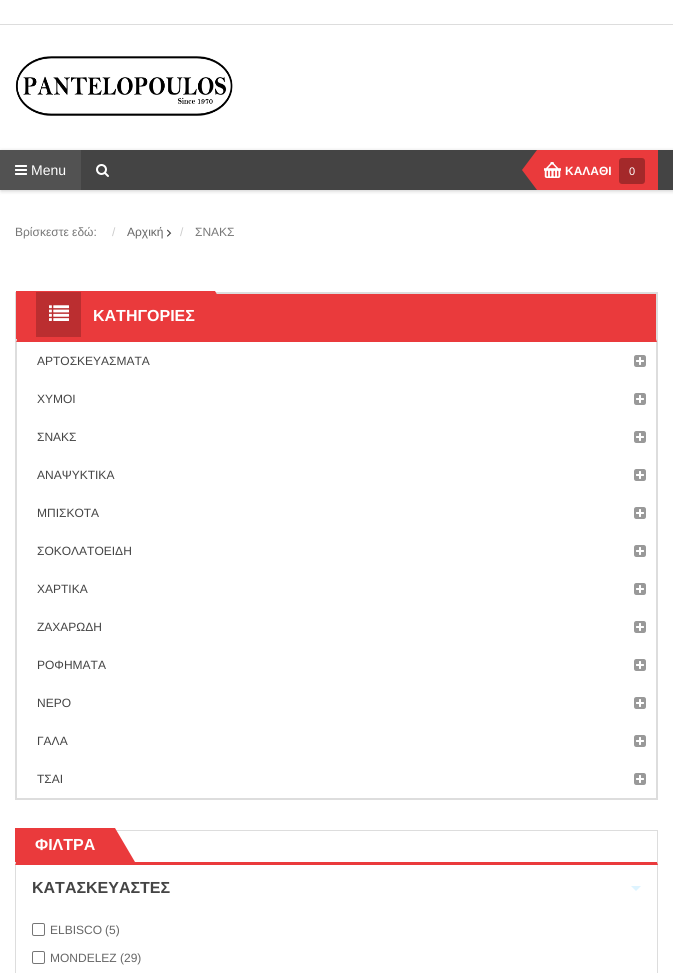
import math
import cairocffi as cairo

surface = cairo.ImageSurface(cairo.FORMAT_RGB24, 673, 973)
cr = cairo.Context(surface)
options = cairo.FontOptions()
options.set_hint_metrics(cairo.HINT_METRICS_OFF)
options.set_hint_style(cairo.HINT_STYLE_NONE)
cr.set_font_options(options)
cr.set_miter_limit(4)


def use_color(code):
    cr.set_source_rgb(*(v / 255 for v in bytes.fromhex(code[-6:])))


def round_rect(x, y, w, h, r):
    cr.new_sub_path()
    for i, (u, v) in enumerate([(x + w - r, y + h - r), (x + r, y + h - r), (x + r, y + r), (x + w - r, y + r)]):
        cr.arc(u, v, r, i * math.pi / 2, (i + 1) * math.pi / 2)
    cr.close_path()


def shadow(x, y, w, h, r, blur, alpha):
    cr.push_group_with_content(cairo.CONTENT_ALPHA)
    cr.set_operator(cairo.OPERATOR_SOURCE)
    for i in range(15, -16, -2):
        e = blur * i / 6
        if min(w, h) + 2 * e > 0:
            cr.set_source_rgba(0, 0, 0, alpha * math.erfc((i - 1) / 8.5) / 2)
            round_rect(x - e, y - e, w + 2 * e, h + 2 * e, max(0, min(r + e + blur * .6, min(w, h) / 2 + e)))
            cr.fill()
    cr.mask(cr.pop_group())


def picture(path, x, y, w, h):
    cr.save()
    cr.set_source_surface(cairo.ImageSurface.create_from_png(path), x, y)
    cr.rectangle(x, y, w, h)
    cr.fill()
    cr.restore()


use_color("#ffffff")
cr.paint()
use_color("#dddddd")
cr.rectangle(0, 24, 673, 1)
cr.fill()
picture("img1.png", 15, 56, 218, 60)
use_color("#000000")
shadow(1, 151, 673, 40, 0, 2, 0.2)
use_color("#444444")
cr.rectangle(81, 150, 592, 40)
cr.fill()
use_color("#525252")
cr.rectangle(0, 150, 81, 40)
cr.fill()
picture("img2.png", 15, 165, 12, 10)
cr.select_font_face("Liberation Sans")
cr.set_font_size(14)
use_color("#ffffff")
cr.move_to(31, 175)
cr.show_text("Menu")
picture("img3.png", 96, 164, 13, 13)
use_color("#ea3a3c")
cr.rectangle(537, 150, 121, 40)
cr.fill()
cr.new_path()
cr.move_to(537, 150)
cr.line_to(537, 190)
cr.line_to(522, 170)
cr.close_path()
cr.fill()
picture("img4.png", 544, 162, 17, 16)
cr.select_font_face("Liberation Sans", cairo.FONT_SLANT_NORMAL, cairo.FONT_WEIGHT_BOLD)
cr.set_font_size(12)
use_color("#ffffff")
cr.move_to(565, 175)
cr.show_text("ΚΑΛΑΘΙ")
use_color("#a4292a")
round_rect(619, 158, 26, 26, 3)
cr.fill()
cr.select_font_face("Liberation Sans")
cr.set_font_size(11)
use_color("#ffffff")
cr.move_to(629, 175)
cr.show_text("0")
cr.set_font_size(12)
use_color("#777777")
cr.move_to(15, 236)
cr.show_text("Βρίσκεστε εδώ:")
use_color("#cccccc")
cr.move_to(112, 236)
cr.show_text("/")
use_color("#666666")
cr.move_to(127, 236)
cr.show_text("Αρχική")
picture("img5.png", 167, 229, 5, 8)
use_color("#cccccc")
cr.move_to(180, 236)
cr.show_text("/")
use_color("#777777")
cr.move_to(195, 236)
cr.show_text("ΣΝΑΚΣ")
cr.rectangle(15.5, 292.5, 642, 507)
use_color("#dddddd")
cr.set_line_width(1)
cr.stroke()
use_color("#ea3a3c")
cr.rectangle(215, 294, 441, 45)
cr.fill()
use_color("#dddddd")
cr.rectangle(216, 293, 441, 1)
cr.fill()
cr.new_path()
cr.move_to(657, 293)
cr.line_to(657, 342)
cr.line_to(656, 339)
cr.line_to(656, 294)
cr.close_path()
cr.fill()
use_color("#ea3a3c")
cr.new_path()
cr.move_to(657, 342)
cr.line_to(16, 342)
cr.line_to(17, 339)
cr.line_to(656, 339)
cr.close_path()
cr.fill()
use_color("#dddddd")
cr.new_path()
cr.move_to(16, 342)
cr.line_to(16, 293)
cr.line_to(17, 294)
cr.line_to(17, 339)
cr.close_path()
cr.fill()
use_color("#ea3a3c")
cr.rectangle(16, 291, 199, 48)
cr.fill()
use_color("#bb2e30")
cr.rectangle(36, 292, 45, 45)
cr.fill()
picture("img6.png", 49, 305, 20, 16)
cr.select_font_face("Liberation Sans", cairo.FONT_SLANT_NORMAL, cairo.FONT_WEIGHT_BOLD)
cr.set_font_size(16)
use_color("#ffffff")
cr.move_to(93, 321)
cr.show_text("ΚΑΤΗΓΟΡΙΕΣ")
use_color("#ea3a3c")
cr.new_path()
cr.move_to(215, 325)
cr.line_to(215, 291)
cr.line_to(235, 325)
cr.close_path()
cr.fill()
use_color("#dddddd")
cr.rectangle(656, 342, 1, 457)
cr.fill()
cr.rectangle(16, 798, 641, 1)
cr.fill()
cr.rectangle(16, 342, 1, 457)
cr.fill()
cr.select_font_face("Liberation Sans")
cr.set_font_size(12)
use_color("#444444")
cr.move_to(37, 365)
cr.show_text("ΑΡΤΟΣΚΕΥΑΣΜΑΤΑ")
picture("img7.png", 634, 355, 12, 12)
cr.move_to(37, 403)
cr.show_text("ΧΥΜΟΙ")
picture("img7.png", 634, 393, 12, 12)
cr.move_to(37, 441)
cr.show_text("ΣΝΑΚΣ")
picture("img7.png", 634, 431, 12, 12)
cr.move_to(37, 479)
cr.show_text("ΑΝΑΨΥΚΤΙΚΑ")
picture("img7.png", 634, 469, 12, 12)
cr.move_to(37, 517)
cr.show_text("ΜΠΙΣΚΟΤΑ")
picture("img7.png", 634, 507, 12, 12)
cr.move_to(37, 555)
cr.show_text("ΣΟΚΟΛΑΤΟΕΙΔΗ")
picture("img7.png", 634, 545, 12, 12)
cr.move_to(37, 593)
cr.show_text("ΧΑΡΤΙΚΑ")
picture("img7.png", 634, 583, 12, 12)
cr.move_to(37, 631)
cr.show_text("ΖΑΧΑΡΩΔΗ")
picture("img7.png", 634, 621, 12, 12)
cr.move_to(37, 669)
cr.show_text("ΡΟΦΗΜΑΤΑ")
picture("img7.png", 634, 659, 12, 12)
cr.move_to(37, 707)
cr.show_text("ΝΕΡΟ")
picture("img7.png", 634, 697, 12, 12)
cr.move_to(37, 745)
cr.show_text("ΓΑΛΑ")
picture("img7.png", 634, 735, 12, 12)
cr.move_to(37, 783)
cr.show_text("ΤΣΑΙ")
picture("img7.png", 634, 773, 12, 12)
use_color("#dddddd")
cr.rectangle(116, 830, 542, 1)
cr.fill()
cr.new_path()
cr.move_to(658, 830)
cr.line_to(658, 865)
cr.line_to(657, 862)
cr.line_to(657, 831)
cr.close_path()
cr.fill()
use_color("#ea3a3c")
cr.new_path()
cr.move_to(658, 865)
cr.line_to(15, 865)
cr.line_to(16, 862)
cr.line_to(657, 862)
cr.close_path()
cr.fill()
use_color("#dddddd")
cr.new_path()
cr.move_to(15, 865)
cr.line_to(15, 830)
cr.line_to(16, 831)
cr.line_to(16, 862)
cr.close_path()
cr.fill()
use_color("#ea3a3c")
cr.rectangle(15, 828, 100, 34)
cr.fill()
cr.select_font_face("Liberation Sans", cairo.FONT_SLANT_NORMAL, cairo.FONT_WEIGHT_BOLD)
cr.set_font_size(16)
use_color("#ffffff")
cr.move_to(35, 850)
cr.show_text("ΦΙΛΤΡΑ")
use_color("#ea3a3c")
cr.new_path()
cr.move_to(115, 862)
cr.line_to(115, 828)
cr.line_to(135, 862)
cr.close_path()
cr.fill()
use_color("#dddddd")
cr.rectangle(657, 865, 1, 108)
cr.fill()
cr.rectangle(15, 865, 1, 108)
cr.fill()
use_color("#444444")
cr.move_to(32, 893)
cr.show_text("ΚΑΤΑΣΚΕΥΑΣΤΕΣ")
picture("img8.png", 631, 886, 10, 5)
round_rect(32.5, 923.5, 12, 12, 1.5)
use_color("#767676")
cr.stroke()
cr.select_font_face("Liberation Sans")
cr.set_font_size(12)
use_color("#666666")
cr.move_to(50, 934)
cr.show_text("ELBISCO")
cr.move_to(105, 934)
cr.show_text("(5)")
round_rect(32.5, 951.5, 12, 12, 1.5)
use_color("#767676")
cr.stroke()
use_color("#666666")
cr.move_to(50, 962)
cr.show_text("MONDELEZ")
cr.move_to(120, 962)
cr.show_text("(29)")
surface.write_to_png("result.png")
